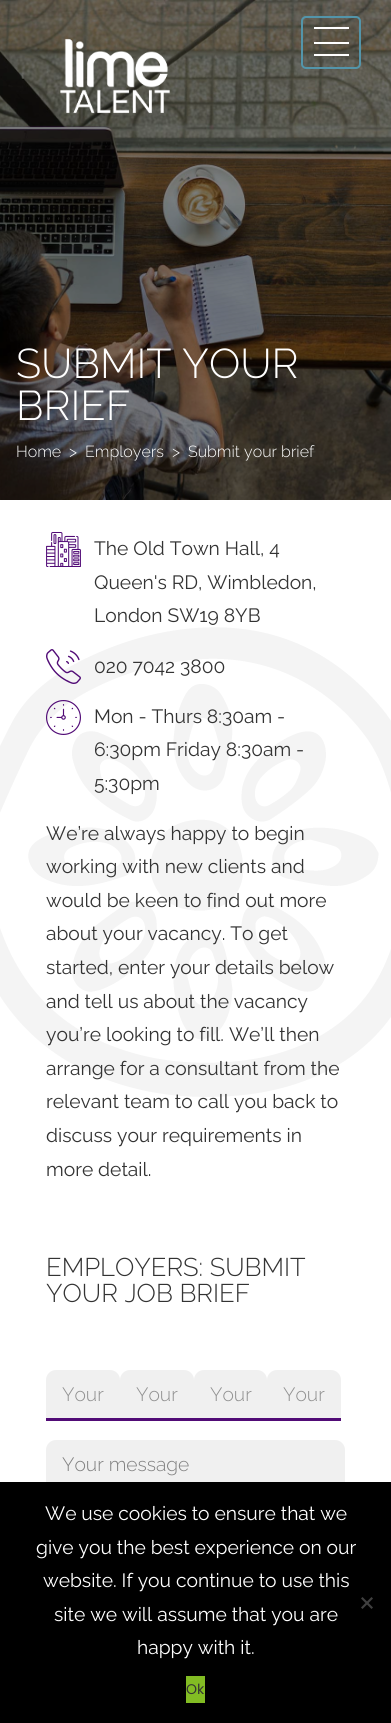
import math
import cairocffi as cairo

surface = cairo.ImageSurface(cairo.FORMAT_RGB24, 391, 1723)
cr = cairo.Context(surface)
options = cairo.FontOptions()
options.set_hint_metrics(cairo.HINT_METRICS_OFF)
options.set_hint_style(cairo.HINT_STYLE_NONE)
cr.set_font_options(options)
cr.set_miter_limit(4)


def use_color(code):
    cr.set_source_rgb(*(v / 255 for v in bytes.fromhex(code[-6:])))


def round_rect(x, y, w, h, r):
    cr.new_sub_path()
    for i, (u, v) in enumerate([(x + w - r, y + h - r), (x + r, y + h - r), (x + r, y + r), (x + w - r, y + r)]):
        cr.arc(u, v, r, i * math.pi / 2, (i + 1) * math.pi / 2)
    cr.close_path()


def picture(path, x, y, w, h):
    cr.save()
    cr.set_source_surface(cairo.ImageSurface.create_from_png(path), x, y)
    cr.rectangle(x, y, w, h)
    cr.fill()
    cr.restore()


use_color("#ffffff")
cr.paint()
picture("img2.png", 0, 0, 391, 500)
picture("img1.png", 60, 38, 110, 76)
round_rect(302, 17, 58, 51, 4)
use_color("#5395aa")
cr.stroke()
use_color("#ffffff")
cr.rectangle(314, 27, 35, 2)
cr.fill()
cr.rectangle(314, 42, 35, 2)
cr.fill()
cr.rectangle(314, 54, 35, 2)
cr.fill()
cr.select_font_face("Raleway Light")
cr.set_font_size(41.5)
cr.move_to(16, 378)
cr.show_text("SUBMIT YOUR")
cr.move_to(16, 420)
cr.show_text("BRIEF")
cr.set_font_size(16)
cr.move_to(16, 457)
cr.show_text("Home")
cr.move_to(69, 457)
cr.show_text(">")
cr.move_to(85, 457)
cr.show_text("Employers")
cr.move_to(172, 457)
cr.show_text(">")
cr.move_to(188, 457)
cr.show_text("Submit your brief")
picture("img3.png", 0, 627, 391, 470)
picture("img4.png", 46, 532, 35, 35)
cr.select_font_face("Raleway")
cr.set_font_size(19.25)
use_color("#333333")
cr.move_to(94, 555)
cr.show_text("The Old Town Hall, 4")
cr.move_to(94, 589)
cr.show_text("Queen's RD, Wimbledon,")
cr.move_to(94, 622)
cr.show_text("London SW19 8YB")
picture("img5.png", 46, 649, 35, 35)
cr.move_to(94, 673)
cr.show_text("020 7042 3800")
picture("img6.png", 46, 700, 35, 35)
cr.move_to(94, 723)
cr.show_text("Mon - Thurs 8:30am -")
cr.move_to(94, 756)
cr.show_text("6:30pm Friday 8:30am -")
cr.move_to(94, 790)
cr.show_text("5:30pm")
cr.move_to(46, 840)
cr.show_text("We’re always happy to begin")
cr.move_to(46, 873)
cr.show_text("working with new clients and")
cr.move_to(46, 907)
cr.show_text("would be keen to find out more")
cr.move_to(46, 940)
cr.show_text("about your vacancy. To get")
cr.move_to(46, 974)
cr.show_text("started, enter your details below")
cr.move_to(46, 1008)
cr.show_text("and tell us about the vacancy")
cr.move_to(46, 1041)
cr.show_text("you’re looking to fill. We’ll then")
cr.move_to(46, 1075)
cr.show_text("arrange for a consultant from the")
cr.move_to(46, 1108)
cr.show_text("relevant team to call you back to")
cr.move_to(46, 1142)
cr.show_text("discuss your requirements in")
cr.move_to(46, 1176)
cr.show_text("more detail.")
cr.select_font_face("Raleway Light")
cr.set_font_size(25.6)
cr.move_to(46, 1276)
cr.show_text("EMPLOYERS: SUBMIT")
cr.move_to(46, 1302)
cr.show_text("YOUR JOB BRIEF")
use_color("#f0f0f0")
cr.new_path()
cr.move_to(56, 1370)
cr.line_to(110, 1370)
cr.curve_to(115.5, 1370, 120, 1374.5, 120, 1380)
cr.line_to(120, 1421)
cr.line_to(46, 1421)
cr.line_to(46, 1380)
cr.curve_to(46, 1374.5, 50.5, 1370, 56, 1370)
cr.close_path()
cr.fill()
use_color("#510b76")
cr.rectangle(46, 1418, 74, 3)
cr.fill()
cr.set_font_size(19.25)
use_color("#909090")
cr.move_to(62, 1401)
cr.show_text("Your")
use_color("#f0f0f0")
cr.new_path()
cr.move_to(130, 1370)
cr.line_to(184, 1370)
cr.curve_to(189.5, 1370, 194, 1374.5, 194, 1380)
cr.line_to(194, 1421)
cr.line_to(120, 1421)
cr.line_to(120, 1380)
cr.curve_to(120, 1374.5, 124.5, 1370, 130, 1370)
cr.close_path()
cr.fill()
use_color("#510b76")
cr.rectangle(120, 1418, 74, 3)
cr.fill()
use_color("#909090")
cr.move_to(136, 1401)
cr.show_text("Your")
use_color("#f0f0f0")
cr.new_path()
cr.move_to(204, 1370)
cr.line_to(257, 1370)
cr.curve_to(262.5, 1370, 267, 1374.5, 267, 1380)
cr.line_to(267, 1421)
cr.line_to(194, 1421)
cr.line_to(194, 1380)
cr.curve_to(194, 1374.5, 198.5, 1370, 204, 1370)
cr.close_path()
cr.fill()
use_color("#510b76")
cr.rectangle(194, 1418, 73, 3)
cr.fill()
use_color("#909090")
cr.move_to(210, 1401)
cr.show_text("Your")
use_color("#f0f0f0")
cr.new_path()
cr.move_to(277, 1370)
cr.line_to(331, 1370)
cr.curve_to(336.5, 1370, 341, 1374.5, 341, 1380)
cr.line_to(341, 1421)
cr.line_to(267, 1421)
cr.line_to(267, 1380)
cr.curve_to(267, 1374.5, 271.5, 1370, 277, 1370)
cr.close_path()
cr.fill()
use_color("#510b76")
cr.rectangle(267, 1418, 74, 3)
cr.fill()
use_color("#909090")
cr.move_to(283, 1401)
cr.show_text("Your")
use_color("#f0f0f0")
cr.new_path()
cr.move_to(56, 1440)
cr.line_to(335, 1440)
cr.curve_to(340.5, 1440, 345, 1444.5, 345, 1450)
cr.line_to(345, 1590)
cr.line_to(46, 1590)
cr.line_to(46, 1450)
cr.curve_to(46, 1444.5, 50.5, 1440, 56, 1440)
cr.close_path()
cr.fill()
use_color("#808080")
cr.move_to(62, 1471)
cr.show_text("Your message")
use_color("#000000")
cr.rectangle(0, 1482, 391, 241)
cr.fill()
cr.select_font_face("Raleway")
use_color("#ffffff")
cr.move_to(45, 1520)
cr.show_text("We use cookies to ensure that we")
cr.move_to(36, 1554)
cr.show_text("give you the best experience on our")
cr.move_to(43, 1587)
cr.show_text("website. If you continue to use this")
cr.move_to(54, 1621)
cr.show_text("site we will assume that you are")
cr.move_to(137, 1654)
cr.show_text("happy with it.")
use_color("#404040")
cr.new_path()
cr.move_to(371.5, 1597)
cr.line_to(373, 1598.5)
cr.line_to(362.5, 1609)
cr.line_to(361, 1607.5)
cr.close_path()
cr.fill()
cr.new_path()
cr.move_to(361, 1598.5)
cr.line_to(362.5, 1597)
cr.line_to(373, 1607.5)
cr.line_to(371.5, 1609)
cr.close_path()
cr.fill()
use_color("#82bc23")
cr.rectangle(186, 1676, 19, 27)
cr.fill()
cr.select_font_face("Poppins")
cr.set_font_size(14)
use_color("#333333")
cr.move_to(186, 1694)
cr.show_text("Ok")
surface.write_to_png("result.png")
